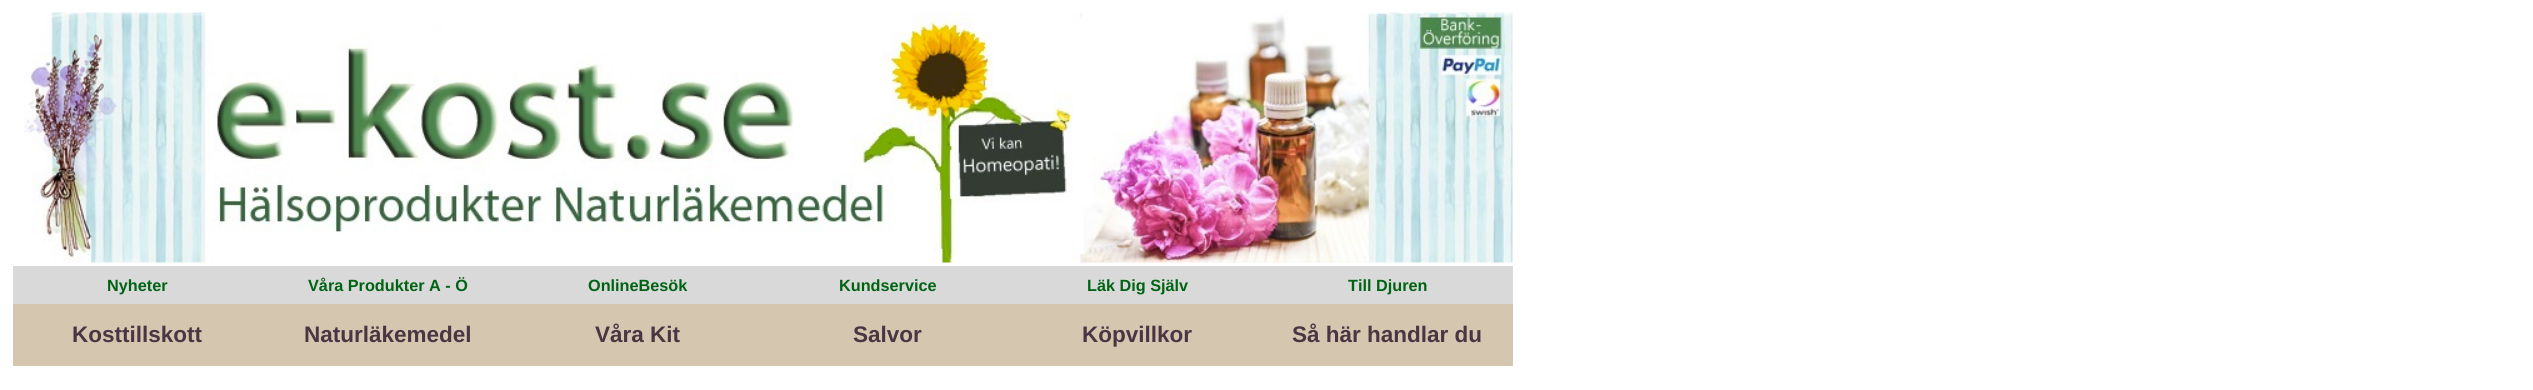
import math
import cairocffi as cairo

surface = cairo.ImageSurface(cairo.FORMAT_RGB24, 2533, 390)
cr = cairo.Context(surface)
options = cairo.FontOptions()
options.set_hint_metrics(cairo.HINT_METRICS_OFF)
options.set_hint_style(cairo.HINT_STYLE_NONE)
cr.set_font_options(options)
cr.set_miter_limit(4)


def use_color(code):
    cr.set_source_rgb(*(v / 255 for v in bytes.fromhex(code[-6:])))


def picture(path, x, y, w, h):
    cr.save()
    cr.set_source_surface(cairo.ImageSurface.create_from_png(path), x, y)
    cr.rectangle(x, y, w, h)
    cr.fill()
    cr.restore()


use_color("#ffffff")
cr.paint()
picture("img1.png", 24, 12, 1489, 251)
use_color("#d9d9d9")
cr.rectangle(13, 266, 1500, 38)
cr.fill()
cr.select_font_face("Liberation Sans", cairo.FONT_SLANT_NORMAL, cairo.FONT_WEIGHT_BOLD)
cr.set_font_size(16.25)
use_color("#006313")
cr.move_to(107, 291)
cr.show_text("Nyheter")
cr.move_to(308, 291)
cr.show_text("Våra Produkter A - Ö")
cr.move_to(588, 291)
cr.show_text("OnlineBesök")
cr.move_to(839, 291)
cr.show_text("Kundservice")
cr.move_to(1087, 291)
cr.show_text("Läk Dig Själv")
cr.move_to(1348, 291)
cr.show_text("Till Djuren")
use_color("#d5c6af")
cr.rectangle(13, 304, 1500, 62)
cr.fill()
cr.set_font_size(22.5)
use_color("#4a3543")
cr.move_to(72, 342)
cr.show_text("Kosttillskott")
cr.move_to(304, 342)
cr.show_text("Naturläkemedel")
cr.move_to(595, 342)
cr.show_text("Våra Kit")
cr.move_to(853, 342)
cr.show_text("Salvor")
cr.move_to(1082, 342)
cr.show_text("Köpvillkor")
cr.move_to(1292, 342)
cr.show_text("Så här handlar du")
surface.write_to_png("result.png")
